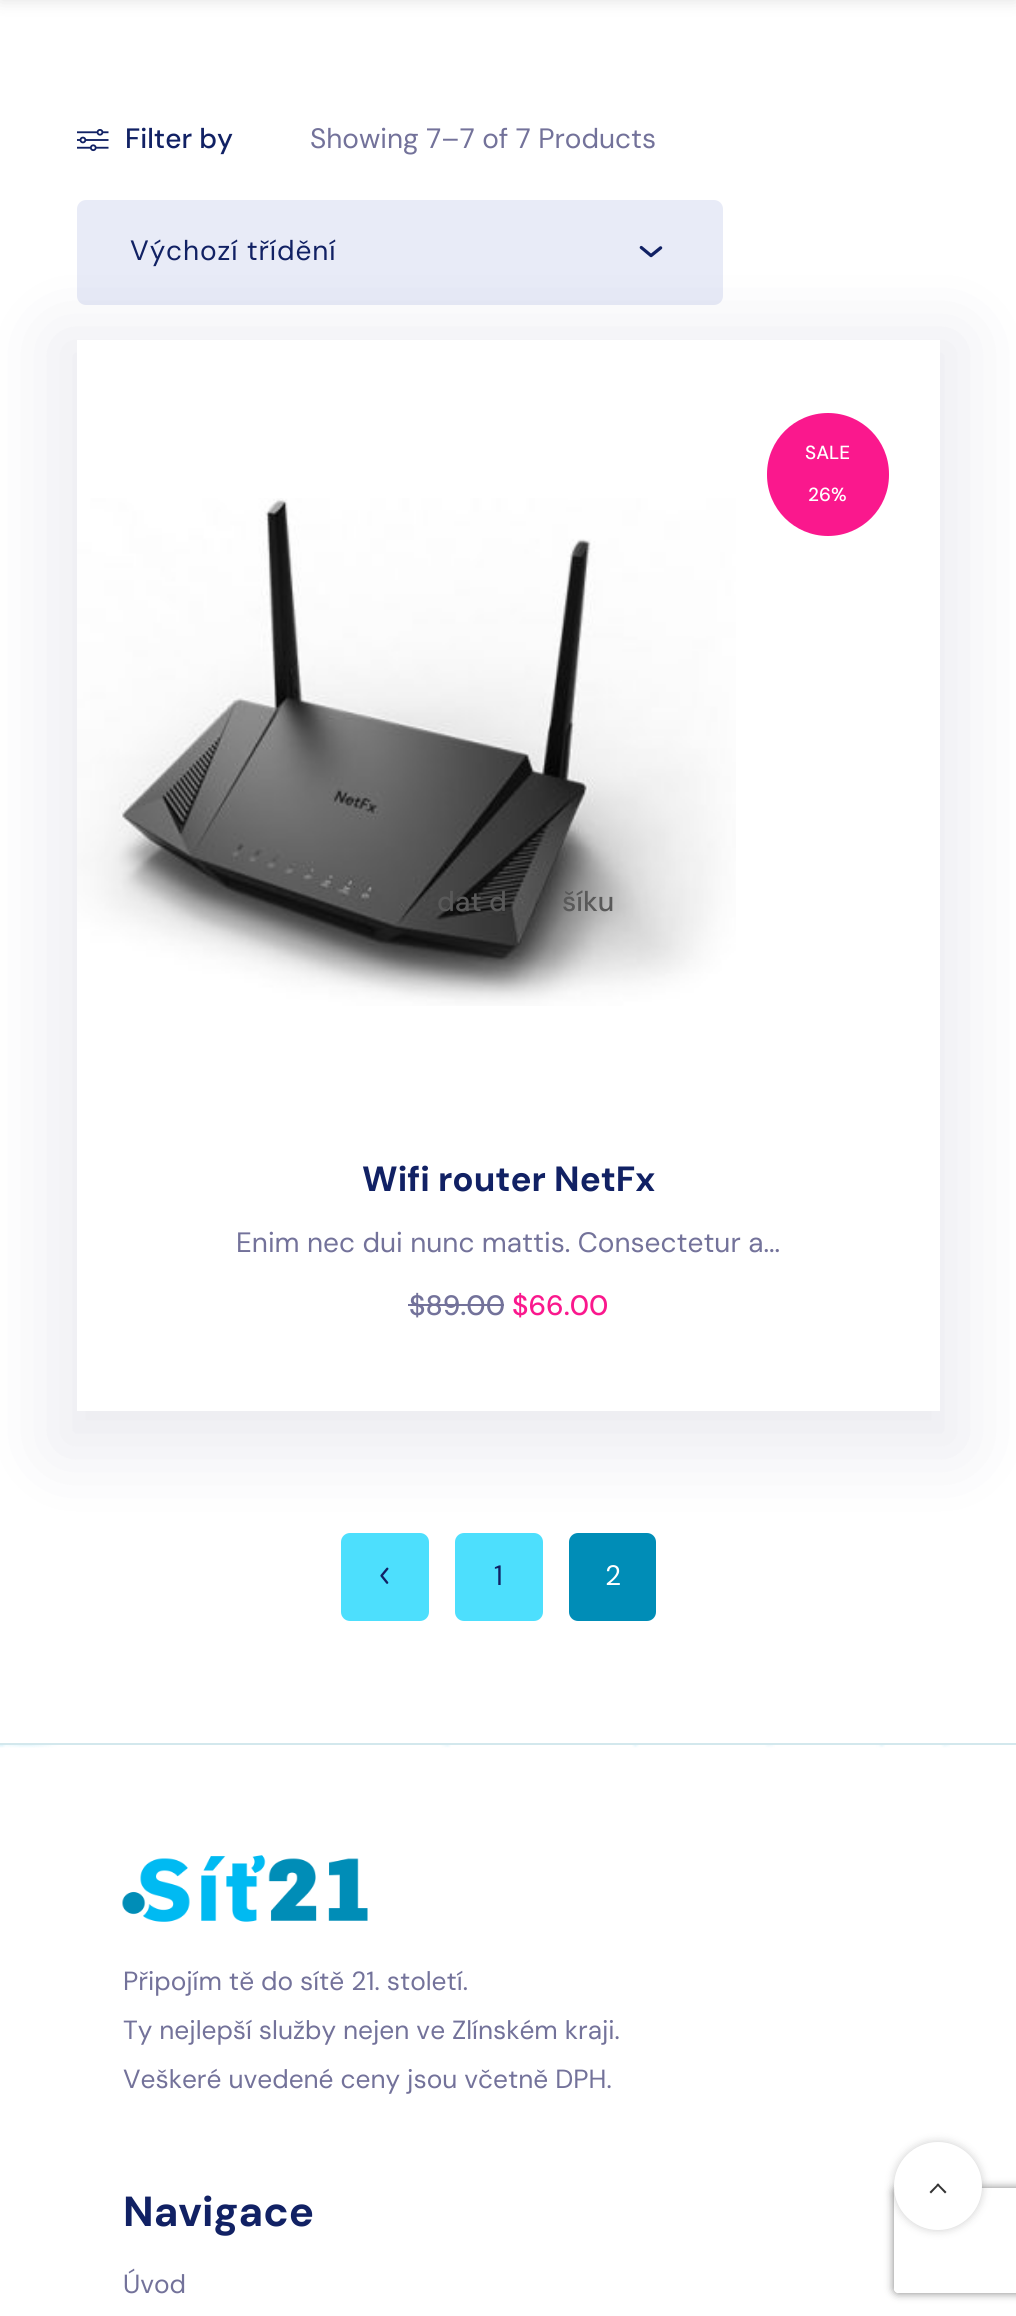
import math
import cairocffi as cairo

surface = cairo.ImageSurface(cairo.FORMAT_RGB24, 1016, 2316)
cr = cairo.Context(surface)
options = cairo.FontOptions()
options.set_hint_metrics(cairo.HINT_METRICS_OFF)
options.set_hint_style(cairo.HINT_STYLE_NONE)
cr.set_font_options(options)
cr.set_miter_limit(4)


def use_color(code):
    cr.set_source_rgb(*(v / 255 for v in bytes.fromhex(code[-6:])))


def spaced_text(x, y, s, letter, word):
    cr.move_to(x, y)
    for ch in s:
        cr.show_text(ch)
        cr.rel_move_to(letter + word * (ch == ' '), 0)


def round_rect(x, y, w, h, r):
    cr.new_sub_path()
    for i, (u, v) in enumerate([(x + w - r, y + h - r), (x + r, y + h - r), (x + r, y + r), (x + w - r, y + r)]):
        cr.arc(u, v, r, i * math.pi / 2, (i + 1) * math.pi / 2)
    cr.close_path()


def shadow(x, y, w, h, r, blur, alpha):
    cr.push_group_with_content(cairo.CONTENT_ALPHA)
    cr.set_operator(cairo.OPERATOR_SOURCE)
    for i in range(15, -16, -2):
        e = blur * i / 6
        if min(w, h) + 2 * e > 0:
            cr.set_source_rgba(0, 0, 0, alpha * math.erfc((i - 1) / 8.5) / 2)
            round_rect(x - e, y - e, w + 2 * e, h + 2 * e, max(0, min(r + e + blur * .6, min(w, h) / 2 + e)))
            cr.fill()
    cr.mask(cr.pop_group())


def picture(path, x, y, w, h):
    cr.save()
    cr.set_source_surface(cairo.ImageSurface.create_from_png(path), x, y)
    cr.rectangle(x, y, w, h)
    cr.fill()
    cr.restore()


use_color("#ffffff")
cr.paint()
use_color("#000000")
shadow(0, -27, 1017, 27, 0, 9, 0.12)
picture("img1.png", 77, 129, 32, 23)
cr.select_font_face("DM Sans Medium")
cr.set_font_size(28)
use_color("#112164")
cr.move_to(125, 148)
cr.show_text("Filter by")
cr.select_font_face("DM Sans")
use_color("#73729a")
cr.move_to(310, 148)
cr.show_text("Showing 7–7 of 7 Products")
use_color("#e8ebf7")
round_rect(77, 200, 646, 105, 9)
cr.fill()
use_color("#112164")
spaced_text(130, 260, "Výchozí třídění", 0.9, 0)
picture("img2.png", 639, 245, 24, 13)
use_color("#4ddffd")
round_rect(341, 1533, 88, 88, 9)
cr.fill()
picture("img4.png", 380, 1567, 9, 17)
round_rect(455, 1533, 88, 88, 9)
cr.fill()
use_color("#008db7")
round_rect(569, 1533, 87, 88, 9)
cr.fill()
use_color("#020242")
shadow(53, 333, 911, 1120, 0, 39, 0.08)
use_color("#ffffff")
cr.rectangle(77, 340, 863, 1071)
cr.fill()
use_color("#fa188d")
round_rect(767, 413, 122, 123, 61)
cr.fill()
cr.select_font_face("DM Sans Medium")
cr.set_font_size(19)
use_color("#ffffff")
cr.move_to(805, 459)
cr.show_text("SALE")
cr.move_to(808, 501)
cr.show_text("26%")
picture("img3.png", 77, 498, 659, 508)
cr.set_font_size(28)
use_color("#595959")
cr.move_to(437, 911)
cr.show_text("dat d")
cr.move_to(562, 911)
cr.show_text("šíku")
cr.select_font_face("DM Sans", cairo.FONT_SLANT_NORMAL, cairo.FONT_WEIGHT_BOLD)
cr.set_font_size(35)
use_color("#112164")
cr.move_to(362, 1191)
cr.show_text("Wifi router NetFx")
cr.select_font_face("DM Sans")
cr.set_font_size(28)
use_color("#73729a")
cr.move_to(236, 1252)
cr.show_text("Enim nec dui nunc mattis. Consectetur a...")
cr.select_font_face("DM Sans Medium")
cr.move_to(409, 1315)
cr.show_text("$89.00")
cr.rectangle(408, 1304, 96, 2)
cr.fill()
use_color("#fa188d")
cr.move_to(512, 1315)
cr.show_text("$66.00")
cr.select_font_face("DM Sans")
use_color("#112164")
cr.move_to(494, 1585)
cr.show_text("1")
use_color("#ffffff")
cr.move_to(605, 1585)
cr.show_text("2")
picture("img5.png", 0, 1745, 950, 3)
use_color("#d3e8ed")
cr.rectangle(0, 1743, 1016, 2)
cr.fill()
picture("img6.png", 122, 1855, 246, 67)
cr.set_font_size(26.25)
use_color("#73729a")
cr.move_to(123, 1990)
cr.show_text("Připojím tě do sítě 21. století.")
cr.move_to(123, 2039)
cr.show_text("Ty nejlepší služby nejen ve Zlínském kraji.")
cr.move_to(123, 2088)
cr.show_text("Veškeré uvedené ceny jsou včetně DPH.")
cr.select_font_face("DM Sans", cairo.FONT_SLANT_NORMAL, cairo.FONT_WEIGHT_BOLD)
cr.set_font_size(42)
use_color("#112164")
cr.move_to(123, 2226)
cr.show_text("Navigace")
cr.select_font_face("DM Sans")
cr.set_font_size(26.25)
use_color("#73729a")
cr.move_to(123, 2293)
cr.show_text("Úvod")
use_color("#000000")
shadow(894, 2142, 88, 88, 44, 4.5, 0.2)
cr.save()
cr.set_fill_rule(cairo.FILL_RULE_EVEN_ODD)
cr.new_path()
cr.move_to(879, 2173)
cr.line_to(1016, 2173)
cr.line_to(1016, 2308)
cr.line_to(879, 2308)
cr.close_path()
cr.move_to(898, 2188)
cr.line_to(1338, 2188)
cr.curve_to(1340, 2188, 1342, 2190, 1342, 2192)
cr.line_to(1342, 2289)
cr.curve_to(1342, 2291, 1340, 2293, 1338, 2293)
cr.line_to(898, 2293)
cr.curve_to(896, 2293, 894, 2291, 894, 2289)
cr.line_to(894, 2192)
cr.curve_to(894, 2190, 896, 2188, 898, 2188)
cr.close_path()
cr.clip()
use_color("#808080")
shadow(894, 2188, 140, 105, 4, 4.5, 1)
cr.restore()
use_color("#ffffff")
cr.arc(938, 2186, 44, 0, 2 * math.pi)
cr.fill()
use_color("#333333")
cr.new_path()
cr.move_to(929.5, 2192)
cr.line_to(938, 2183.5)
cr.line_to(939.5, 2184.5)
cr.line_to(931, 2193.5)
cr.close_path()
cr.fill()
cr.new_path()
cr.move_to(938, 2183.5)
cr.line_to(946.5, 2192)
cr.line_to(945, 2193.5)
cr.line_to(936.5, 2184.5)
cr.close_path()
cr.fill()
surface.write_to_png("result.png")
